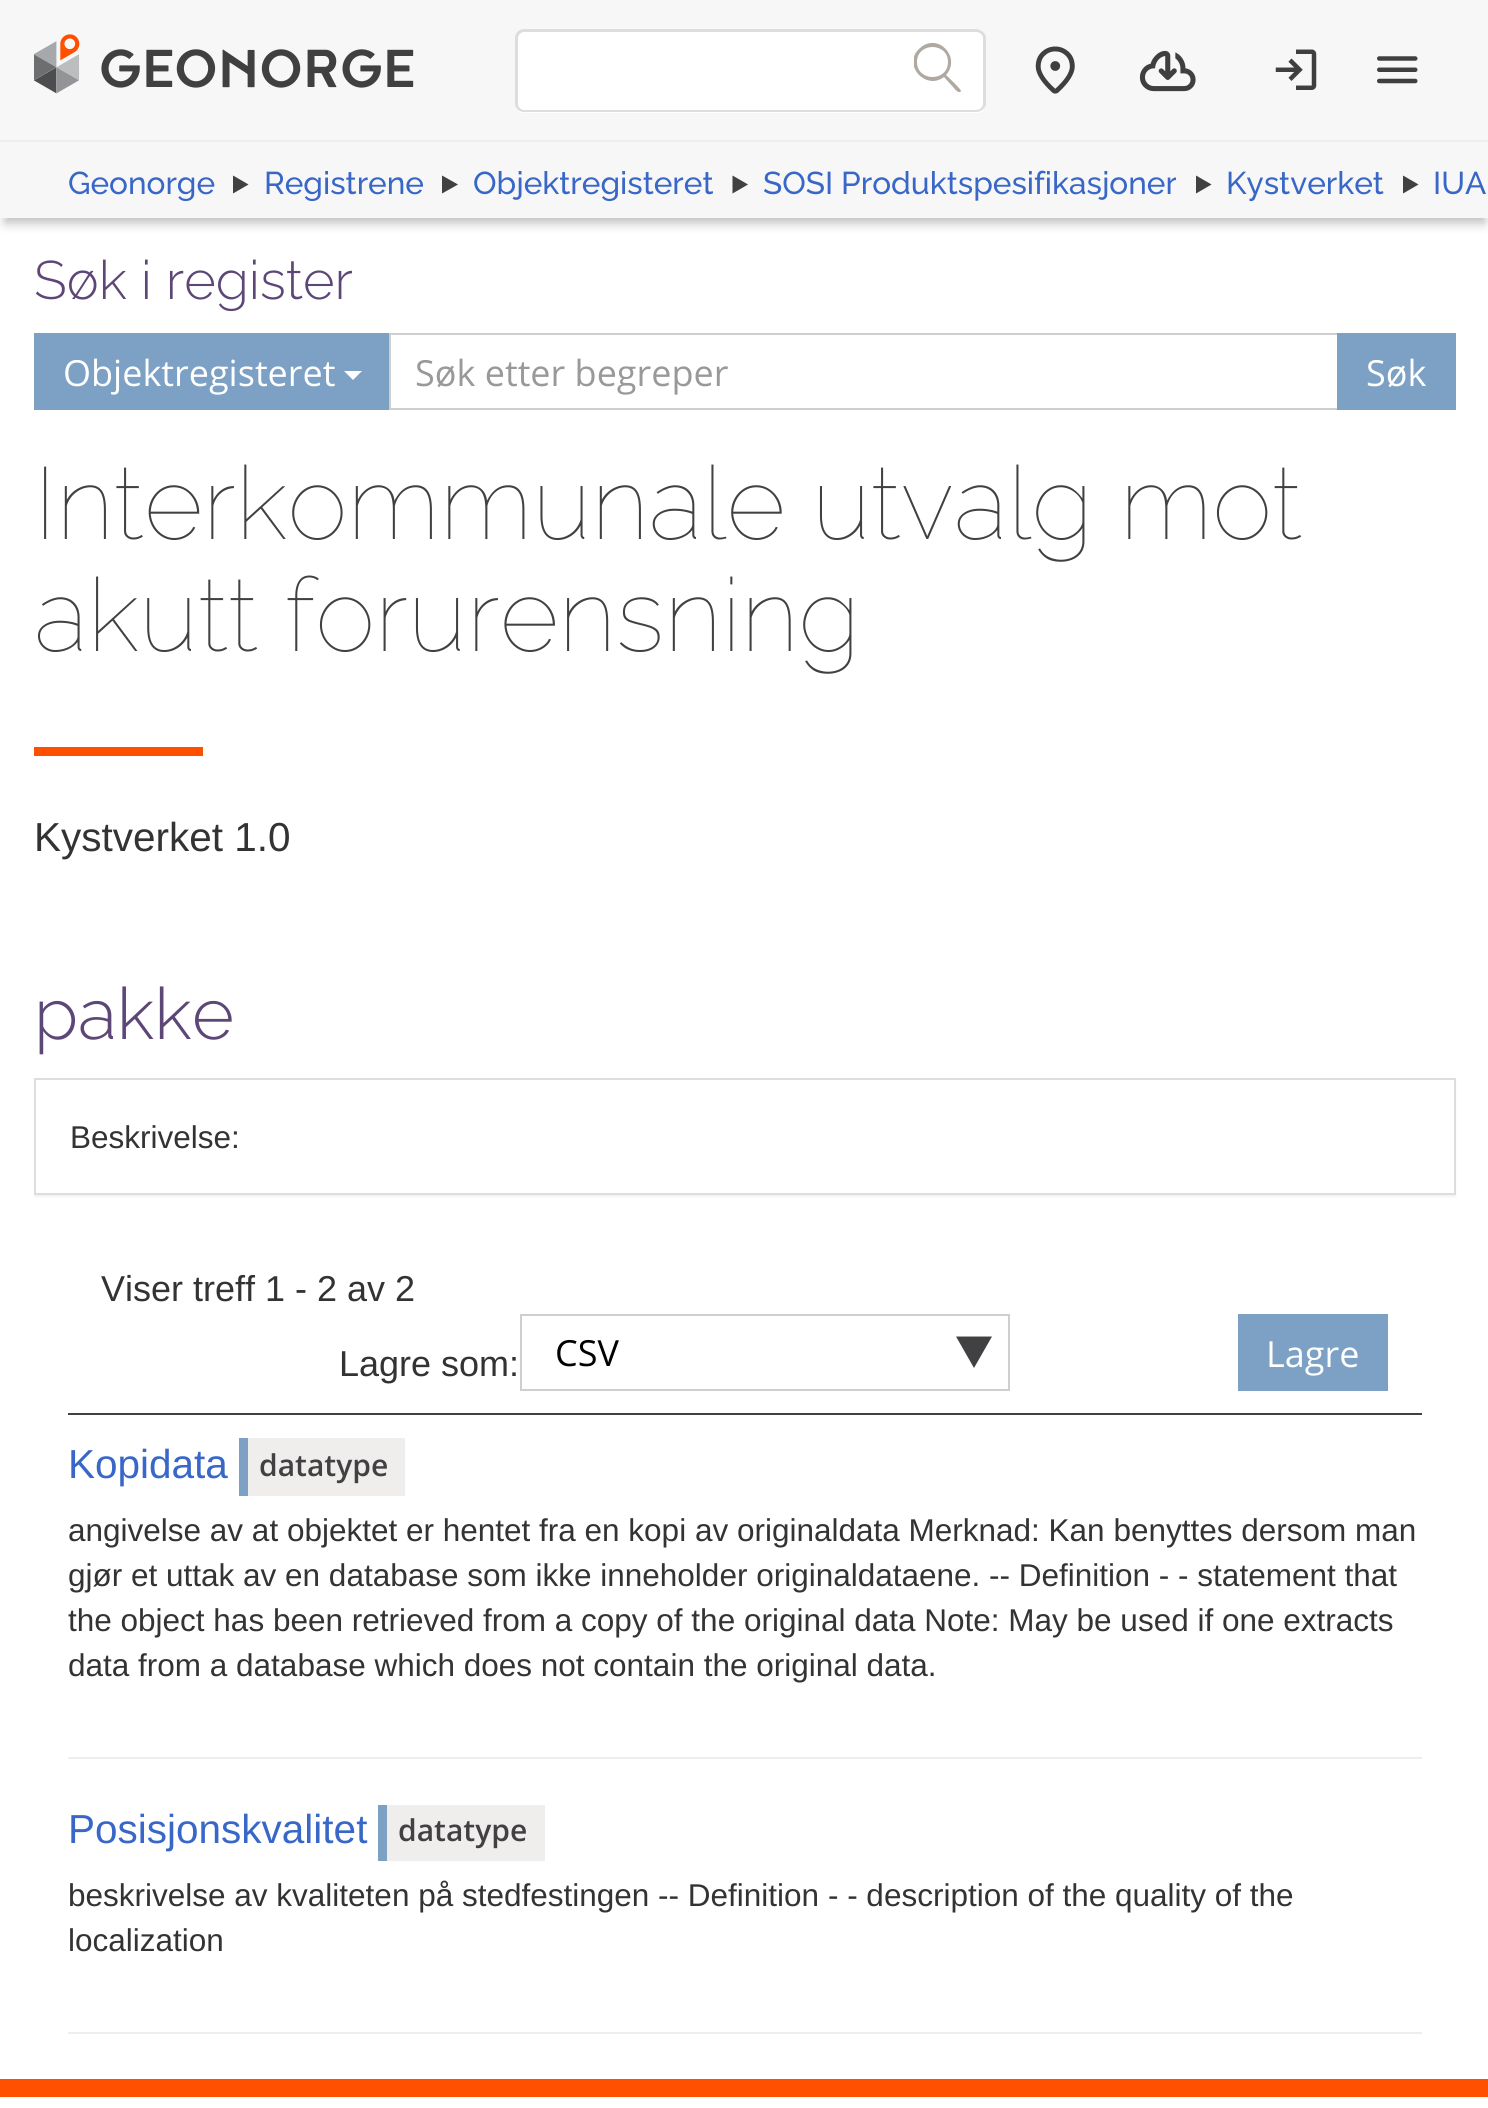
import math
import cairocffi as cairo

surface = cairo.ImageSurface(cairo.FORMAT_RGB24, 1488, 2108)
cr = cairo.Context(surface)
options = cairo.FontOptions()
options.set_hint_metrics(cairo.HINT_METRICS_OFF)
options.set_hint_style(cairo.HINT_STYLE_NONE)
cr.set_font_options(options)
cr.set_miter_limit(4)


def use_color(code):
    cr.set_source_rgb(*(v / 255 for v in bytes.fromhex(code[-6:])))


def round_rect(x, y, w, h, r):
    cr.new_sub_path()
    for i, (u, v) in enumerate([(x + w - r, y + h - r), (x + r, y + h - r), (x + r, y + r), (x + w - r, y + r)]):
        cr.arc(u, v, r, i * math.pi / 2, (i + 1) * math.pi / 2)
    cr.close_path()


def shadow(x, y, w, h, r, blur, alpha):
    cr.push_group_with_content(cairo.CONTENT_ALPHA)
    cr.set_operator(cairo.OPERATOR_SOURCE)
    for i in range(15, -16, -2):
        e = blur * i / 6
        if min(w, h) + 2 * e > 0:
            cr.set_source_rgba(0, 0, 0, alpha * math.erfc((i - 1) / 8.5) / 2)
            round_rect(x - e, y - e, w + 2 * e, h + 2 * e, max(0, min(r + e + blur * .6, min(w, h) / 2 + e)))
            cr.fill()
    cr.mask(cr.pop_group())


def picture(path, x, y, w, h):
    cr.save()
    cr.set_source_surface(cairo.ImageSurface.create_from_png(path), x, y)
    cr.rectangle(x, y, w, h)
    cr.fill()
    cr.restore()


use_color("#ffffff")
cr.paint()
use_color("#000000")
shadow(5, 153, 1480, 70, 0, 5.5, 0.26)
use_color("#f7f7f7")
cr.rectangle(0, 0, 1488, 140)
cr.fill()
picture("img1.png", 34, 34, 380, 60)
use_color("#ffffff")
cr.new_path()
cr.move_to(524, 29)
cr.line_to(891, 29)
cr.line_to(891, 113)
cr.line_to(524, 113)
cr.curve_to(519, 113, 515, 109, 515, 104)
cr.line_to(515, 38)
cr.curve_to(515, 33, 519, 29, 524, 29)
cr.close_path()
cr.fill()
use_color("#dfdcda")
cr.set_fill_rule(cairo.FILL_RULE_EVEN_ODD)
cr.new_path()
cr.move_to(524, 29)
cr.line_to(891, 29)
cr.line_to(891, 112)
cr.line_to(524, 112)
cr.curve_to(519, 112, 515, 108, 515, 104)
cr.line_to(515, 38)
cr.curve_to(515, 33, 519, 29, 524, 29)
cr.close_path()
cr.move_to(524, 32)
cr.line_to(891, 32)
cr.line_to(891, 110)
cr.line_to(524, 110)
cr.curve_to(521, 110, 518, 107, 518, 104)
cr.line_to(518, 38)
cr.curve_to(518, 35, 521, 32, 524, 32)
cr.close_path()
cr.fill()
use_color("#ffffff")
cr.new_path()
cr.move_to(891, 29)
cr.line_to(977, 29)
cr.curve_to(982, 29, 986, 33, 986, 38)
cr.line_to(986, 104)
cr.curve_to(986, 109, 982, 113, 977, 113)
cr.line_to(891, 113)
cr.close_path()
cr.fill()
use_color("#dfdcda")
cr.new_path()
cr.move_to(891, 29)
cr.line_to(976, 29)
cr.curve_to(981, 29, 986, 33, 986, 38)
cr.line_to(986, 104)
cr.curve_to(986, 108, 981, 112, 976, 112)
cr.line_to(891, 112)
cr.close_path()
cr.move_to(891, 32)
cr.line_to(976, 32)
cr.curve_to(980, 32, 983, 35, 983, 38)
cr.line_to(983, 104)
cr.curve_to(983, 107, 980, 110, 976, 110)
cr.line_to(891, 110)
cr.close_path()
cr.fill()
cr.save()
cr.set_fill_rule(cairo.FILL_RULE_WINDING)
cr.rectangle(914, 43, 47, 49)
cr.clip()
use_color("#b0a9a2")
cr.new_path()
cr.move_to(946, 75)
cr.curve_to(962, 57, 937, 31, 919, 49)
cr.curve_to(902, 65, 926, 91, 944, 77)
cr.line_to(953, 87)
cr.curve_to(953, 87, 959, 95, 961, 91)
cr.curve_to(961, 89, 948, 77, 946, 75)
cr.close_path()
cr.move_to(917, 62)
cr.curve_to(917, 42, 948, 42, 948, 62)
cr.curve_to(948, 82, 917, 82, 917, 62)
cr.close_path()
cr.fill()
cr.restore()
picture("img2.png", 1035, 46, 40, 48)
picture("img3.png", 1139, 50, 57, 42)
picture("img4.png", 1275, 49, 42, 41)
picture("img5.png", 1377, 56, 41, 28)
use_color("#f7f7f7")
cr.rectangle(0, 142, 1488, 76)
cr.fill()
use_color("#eeeeee")
cr.rectangle(0, 140, 1488, 2)
cr.fill()
cr.select_font_face("Raleway Medium")
cr.set_font_size(31.5)
use_color("#3867c8")
cr.move_to(68, 194)
cr.show_text("Geonorge")
use_color("#414042")
cr.set_fill_rule(cairo.FILL_RULE_WINDING)
cr.new_path()
cr.move_to(248.5, 184.5)
cr.line_to(233, 193.5)
cr.line_to(233, 175.5)
cr.close_path()
cr.fill()
use_color("#3867c8")
cr.move_to(264, 194)
cr.show_text("Registrene")
use_color("#414042")
cr.new_path()
cr.move_to(458, 184.5)
cr.line_to(442, 193.5)
cr.line_to(442, 175.5)
cr.close_path()
cr.fill()
use_color("#3867c8")
cr.move_to(473, 194)
cr.show_text("Objektregisteret")
use_color("#414042")
cr.new_path()
cr.move_to(748, 184.5)
cr.line_to(732.5, 193.5)
cr.line_to(732.5, 175.5)
cr.close_path()
cr.fill()
use_color("#3867c8")
cr.move_to(763, 194)
cr.show_text("SOSI Produktspesifikasjoner")
use_color("#414042")
cr.new_path()
cr.move_to(1211.5, 184.5)
cr.line_to(1196, 193.5)
cr.line_to(1196, 175.5)
cr.close_path()
cr.fill()
use_color("#3867c8")
cr.move_to(1226, 194)
cr.show_text("Kystverket")
use_color("#414042")
cr.new_path()
cr.move_to(1418.5, 184.5)
cr.line_to(1403, 193.5)
cr.line_to(1403, 175.5)
cr.close_path()
cr.fill()
use_color("#3867c8")
cr.move_to(1433, 194)
cr.show_text("IUA")
cr.select_font_face("Raleway Light")
cr.set_font_size(54)
use_color("#5d4777")
cr.move_to(34, 299)
cr.show_text("Søk i register")
use_color("#7da1c4")
cr.rectangle(34, 333, 355, 77)
cr.fill()
cr.select_font_face("Open Sans")
cr.set_font_size(36)
use_color("#ffffff")
cr.move_to(63, 386)
cr.show_text("Objektregisteret")
cr.new_path()
cr.move_to(344, 371)
cr.line_to(362, 371)
cr.line_to(353, 380)
cr.close_path()
cr.fill()
cr.rectangle(390, 334, 948, 75)
use_color("#cfcfcf")
cr.stroke()
use_color("#999999")
cr.move_to(415, 386)
cr.show_text("Søk etter begreper")
use_color("#7da1c4")
cr.rectangle(1337, 333, 119, 77)
cr.fill()
use_color("#ffffff")
cr.move_to(1366, 386)
cr.show_text("Søk")
cr.select_font_face("Raleway Thin")
cr.set_font_size(102)
use_color("#414042")
cr.move_to(34, 539)
cr.show_text("Interkommunale utvalg mot")
cr.move_to(34, 651)
cr.show_text("akutt forurensning")
use_color("#fe5000")
cr.rectangle(34, 747, 169, 9)
cr.fill()
cr.select_font_face("Liberation Sans")
cr.set_font_size(40.5)
use_color("#333333")
cr.move_to(34, 851)
cr.show_text("Kystverket 1.0")
cr.select_font_face("Raleway Light")
cr.set_font_size(72)
use_color("#5d4777")
cr.move_to(34, 1039)
cr.show_text("pakke")
use_color("#000000")
shadow(34, 1080, 1422, 117, 0, 1, 0.05)
use_color("#ffffff")
cr.rectangle(35, 1079, 1420, 115)
cr.fill_preserve()
use_color("#dddddd")
cr.stroke()
cr.select_font_face("Liberation Sans")
cr.set_font_size(31.5)
use_color("#333333")
cr.move_to(70, 1148)
cr.show_text("Beskrivelse:")
cr.set_font_size(36)
cr.move_to(101, 1301)
cr.show_text("Viser treff 1 - 2 av 2")
cr.move_to(339, 1376)
cr.show_text("Lagre som:")
use_color("#414042")
cr.new_path()
cr.move_to(956, 1336.5)
cr.line_to(974, 1368)
cr.line_to(992, 1336.5)
cr.close_path()
cr.fill()
cr.rectangle(521, 1315, 488, 75)
use_color("#cfcfcf")
cr.stroke()
cr.select_font_face("Open Sans")
use_color("#000000")
cr.move_to(555, 1366)
cr.show_text("CSV")
use_color("#7da1c4")
cr.rectangle(1238, 1314, 150, 77)
cr.fill()
use_color("#ffffff")
cr.move_to(1266, 1367)
cr.show_text("Lagre")
use_color("#414042")
cr.rectangle(68, 1413, 1354, 2)
cr.fill()
cr.select_font_face("Liberation Sans")
cr.set_font_size(40.5)
use_color("#3867c8")
cr.move_to(68, 1478)
cr.show_text("Kopidata")
use_color("#efeeed")
cr.rectangle(248, 1438, 157, 58)
cr.fill()
use_color("#7da1c4")
cr.rectangle(239, 1438, 9, 58)
cr.fill()
cr.select_font_face("Open Sans SemiBold")
cr.set_font_size(30)
use_color("#414042")
cr.move_to(259, 1476)
cr.show_text("datatype")
cr.select_font_face("Liberation Sans")
cr.set_font_size(31.5)
use_color("#333333")
cr.move_to(68, 1541)
cr.show_text("angivelse av at objektet er hentet fra en kopi av originaldata Merknad: Kan benyttes dersom man")
cr.move_to(68, 1586)
cr.show_text("gjør et uttak av en database som ikke inneholder originaldataene. -- Definition - - statement that")
cr.move_to(68, 1631)
cr.show_text("the object has been retrieved from a copy of the original data Note: May be used if one extracts")
cr.move_to(68, 1676)
cr.show_text("data from a database which does not contain the original data.")
use_color("#eeeeee")
cr.rectangle(68, 1757, 1354, 2)
cr.fill()
cr.set_font_size(40.5)
use_color("#3867c8")
cr.move_to(68, 1843)
cr.show_text("Posisjonskvalitet")
use_color("#efeeed")
cr.rectangle(387, 1805, 158, 56)
cr.fill()
use_color("#7da1c4")
cr.rectangle(378, 1805, 9, 56)
cr.fill()
cr.select_font_face("Open Sans SemiBold")
cr.set_font_size(30)
use_color("#414042")
cr.move_to(398, 1841)
cr.show_text("datatype")
cr.select_font_face("Liberation Sans")
cr.set_font_size(31.5)
use_color("#333333")
cr.move_to(68, 1906)
cr.show_text("beskrivelse av kvaliteten på stedfestingen -- Definition - - description of the quality of the")
cr.move_to(68, 1951)
cr.show_text("localization")
use_color("#eeeeee")
cr.rectangle(68, 2032, 1354, 2)
cr.fill()
use_color("#fe5000")
cr.rectangle(0, 2079, 1488, 18)
cr.fill()
surface.write_to_png("result.png")
